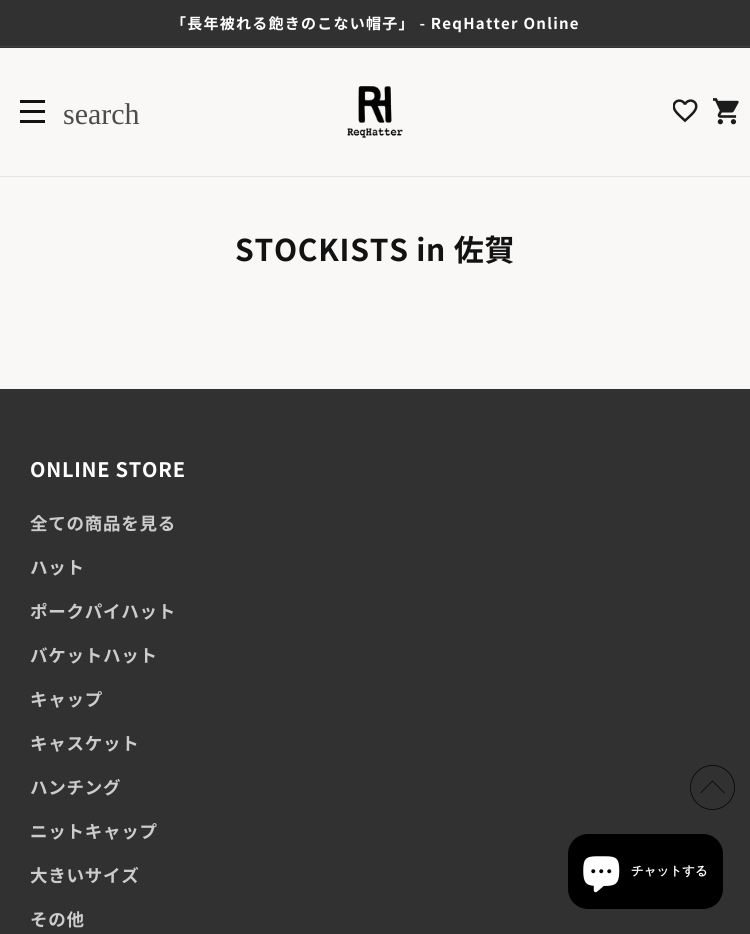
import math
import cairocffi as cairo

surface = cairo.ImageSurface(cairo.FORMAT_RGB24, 750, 934)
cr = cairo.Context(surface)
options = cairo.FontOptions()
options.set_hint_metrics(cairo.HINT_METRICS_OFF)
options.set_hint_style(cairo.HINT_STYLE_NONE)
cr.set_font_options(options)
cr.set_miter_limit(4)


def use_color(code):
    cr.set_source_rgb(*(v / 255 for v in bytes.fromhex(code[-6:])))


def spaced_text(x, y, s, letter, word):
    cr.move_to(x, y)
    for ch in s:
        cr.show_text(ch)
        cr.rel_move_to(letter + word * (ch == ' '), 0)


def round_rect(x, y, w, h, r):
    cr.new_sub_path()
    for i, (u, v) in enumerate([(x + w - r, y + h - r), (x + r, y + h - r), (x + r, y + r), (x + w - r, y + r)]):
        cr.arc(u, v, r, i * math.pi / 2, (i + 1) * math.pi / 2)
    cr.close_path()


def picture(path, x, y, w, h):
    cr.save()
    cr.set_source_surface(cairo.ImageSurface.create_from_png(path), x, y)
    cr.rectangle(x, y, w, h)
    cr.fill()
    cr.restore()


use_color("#f9f8f7")
cr.paint()
use_color("#313131")
cr.rectangle(0, 0, 750, 48)
cr.fill()
use_color("#414141")
cr.rectangle(0, 46, 750, 1)
cr.fill()
cr.select_font_face("Noto Sans JP", cairo.FONT_SLANT_NORMAL, cairo.FONT_WEIGHT_BOLD)
cr.set_font_size(15)
use_color("#ffffff")
spaced_text(171, 29, "「長年被れる飽きのこない帽子」 - ReqHatter Online", 1.25, 0)
use_color("#e7e6e5")
cr.rectangle(0, 176, 750, 1)
cr.fill()
use_color("#121212")
cr.rectangle(20, 100, 25, 3)
cr.fill()
cr.rectangle(20, 110, 25, 3)
cr.fill()
cr.rectangle(20, 120, 25, 3)
cr.fill()
cr.select_font_face("Liberation Serif")
cr.set_font_size(30)
use_color("#4c4c4b")
cr.move_to(63, 124)
cr.show_text("search")
picture("img1.png", 347, 86, 56, 52)
picture("img2.png", 673, 99, 25, 24)
picture("img3.png", 713, 98, 26, 27)
cr.select_font_face("Noto Sans JP", cairo.FONT_SLANT_NORMAL, cairo.FONT_WEIGHT_BOLD)
use_color("#121212")
spaced_text(235, 261, "STOCKISTS in 佐賀", 0.75, 0)
use_color("#313131")
cr.rectangle(0, 389, 750, 545)
cr.fill()
cr.set_font_size(20)
use_color("#ffffff")
spaced_text(30, 477, "ONLINE STORE", 0.75, 0)
cr.set_font_size(17.5)
use_color("#cccccc")
spaced_text(30, 530, "全ての商品を見る", 0.75, 0)
spaced_text(30, 574, "ハット", 0.75, 0)
spaced_text(30, 618, "ポークパイハット", 0.75, 0)
spaced_text(30, 662, "バケットハット", 0.75, 0)
spaced_text(30, 706, "キャップ", 0.75, 0)
spaced_text(30, 750, "キャスケット", 0.75, 0)
spaced_text(30, 794, "ハンチング", 0.75, 0)
spaced_text(30, 838, "ニットキャップ", 0.75, 0)
spaced_text(30, 882, "大きいサイズ", 0.75, 0)
spaced_text(30, 926, "その他", 0.75, 0)
cr.new_path()
cr.move_to(700.5, 793)
cr.line_to(712.5, 781)
cr.line_to(724.5, 793)
use_color("#000000")
cr.set_line_width(0.7)
cr.set_line_join(cairo.LINE_JOIN_BEVEL)
cr.stroke()
cr.arc(712.5, 787.5, 22, 0, 2 * math.pi)
cr.set_line_join(cairo.LINE_JOIN_MITER)
cr.stroke()
round_rect(568, 834, 155, 75, 20)
cr.fill()
picture("img4.png", 583, 856, 37, 37)
cr.select_font_face("WenQuanYi Zen Hei", cairo.FONT_SLANT_NORMAL, cairo.FONT_WEIGHT_BOLD)
cr.set_font_size(12.5)
use_color("#ffffff")
cr.move_to(631, 875)
cr.show_text("チャットする")
surface.write_to_png("result.png")
